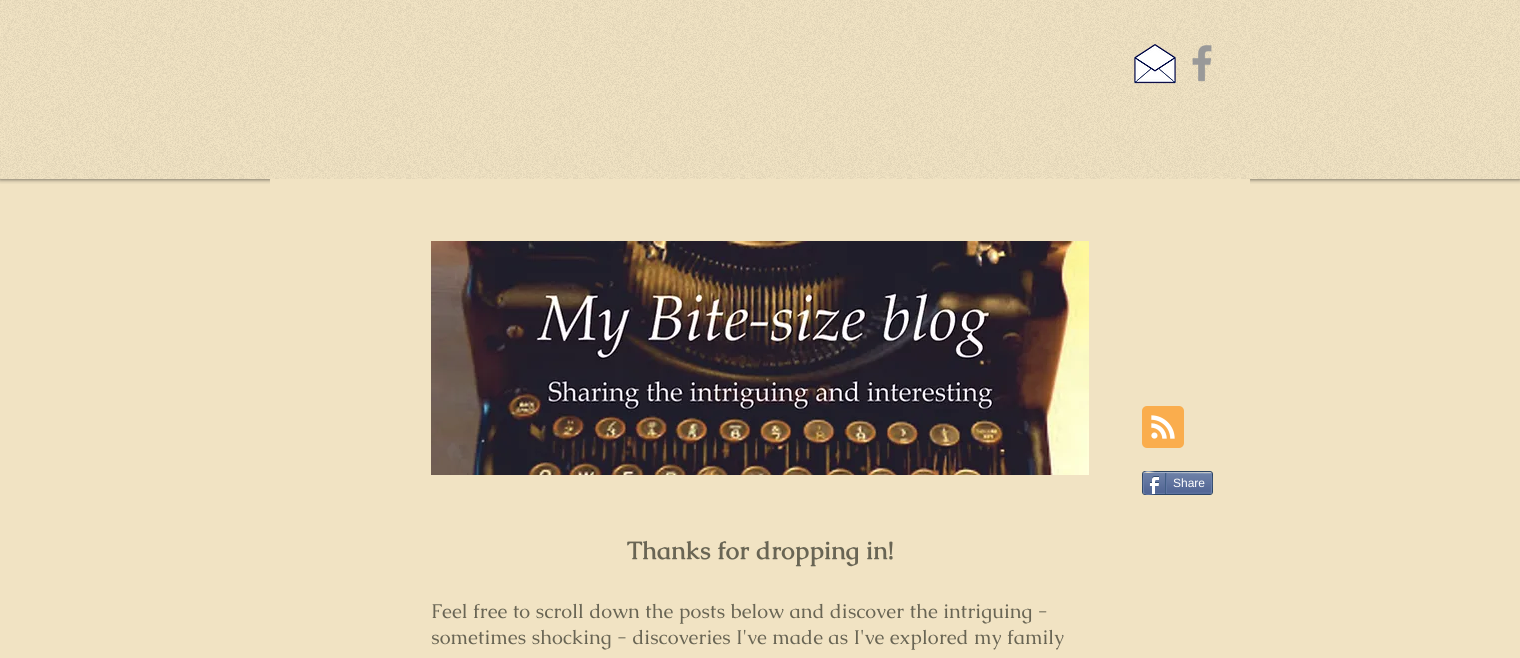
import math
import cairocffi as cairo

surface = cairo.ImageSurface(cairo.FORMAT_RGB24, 1520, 658)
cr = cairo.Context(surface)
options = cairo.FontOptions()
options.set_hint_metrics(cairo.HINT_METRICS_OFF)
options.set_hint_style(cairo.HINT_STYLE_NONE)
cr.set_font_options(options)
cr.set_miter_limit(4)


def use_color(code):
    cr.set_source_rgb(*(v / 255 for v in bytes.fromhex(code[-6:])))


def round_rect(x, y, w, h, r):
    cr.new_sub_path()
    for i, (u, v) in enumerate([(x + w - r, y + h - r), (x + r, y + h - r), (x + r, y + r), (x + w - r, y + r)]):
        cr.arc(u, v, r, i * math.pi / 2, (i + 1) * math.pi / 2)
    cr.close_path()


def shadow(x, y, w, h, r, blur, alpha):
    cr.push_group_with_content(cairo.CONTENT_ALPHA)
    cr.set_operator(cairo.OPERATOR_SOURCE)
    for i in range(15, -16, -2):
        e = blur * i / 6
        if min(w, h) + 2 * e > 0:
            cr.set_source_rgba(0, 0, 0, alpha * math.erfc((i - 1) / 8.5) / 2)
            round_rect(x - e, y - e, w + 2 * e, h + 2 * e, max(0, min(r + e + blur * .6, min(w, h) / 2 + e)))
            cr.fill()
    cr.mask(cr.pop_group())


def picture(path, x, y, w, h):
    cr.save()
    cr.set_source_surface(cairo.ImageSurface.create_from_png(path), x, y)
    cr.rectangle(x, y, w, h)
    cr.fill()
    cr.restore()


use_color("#f1e3c3")
cr.paint()
cr.save()
cr.rectangle(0, 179, 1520, 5)
cr.clip()
use_color("#000000")
shadow(0, 0, 1520, 179, 0, 2.5, 0.7)
cr.restore()
picture("img1.png", 0, 0, 1520, 179)
picture("img2.png", 1134, 44, 42, 40)
picture("img3.png", 1192, 45, 20, 37)
use_color("#f1e3c3")
cr.rectangle(270, 179, 980, 5)
cr.fill()
picture("img4.png", 431, 241, 658, 234)
picture("img5.png", 1142, 406, 42, 42)
round_rect(1142.5, 471.5, 70, 23, 2.5)
use_color("#2d4565")
cr.set_line_width(1)
cr.stroke()
picture("img6.png", 1143, 473, 69, 21)
cr.new_path()
cr.move_to(1144, 473)
cr.curve_to(1147, 470, 1152, 472.5, 1156, 472.5)
cr.line_to(1211, 473)
use_color("#9aabc6")
cr.stroke()
cr.new_path()
cr.move_to(1211, 473)
cr.curve_to(1212, 473.5, 1212, 492.5, 1211, 493)
use_color("#6f83ad")
cr.stroke()
cr.new_path()
cr.move_to(1211, 493)
cr.line_to(1156, 493.5)
cr.curve_to(1152, 493.5, 1147, 496, 1144, 493)
use_color("#6176a3")
cr.stroke()
cr.new_path()
cr.move_to(1144, 493)
cr.curve_to(1143, 492.5, 1143, 473.5, 1144, 473)
use_color("#6f83ad")
cr.stroke()
picture("img7.png", 1149, 476, 10, 18)
use_color("#425e85")
cr.rectangle(1165, 473, 1, 21)
cr.fill()
cr.select_font_face("Liberation Sans")
cr.set_font_size(12)
use_color("#ffffff")
cr.move_to(1173, 487)
cr.show_text("Share")
use_color("#6176a3")
cr.rectangle(1166, 473, 1, 20)
cr.fill()
cr.select_font_face("Caudex", cairo.FONT_SLANT_NORMAL, cairo.FONT_WEIGHT_BOLD)
cr.set_font_size(25)
use_color("#696554")
cr.move_to(627, 559)
cr.show_text("Thanks for dropping in!")
cr.select_font_face("Caudex")
cr.set_font_size(20)
cr.move_to(431, 618)
cr.show_text("Feel free to scroll down the posts below and discover the intriguing -")
cr.move_to(431, 644)
cr.show_text("sometimes shocking - discoveries I've made as I've explored my family")
surface.write_to_png("result.png")
